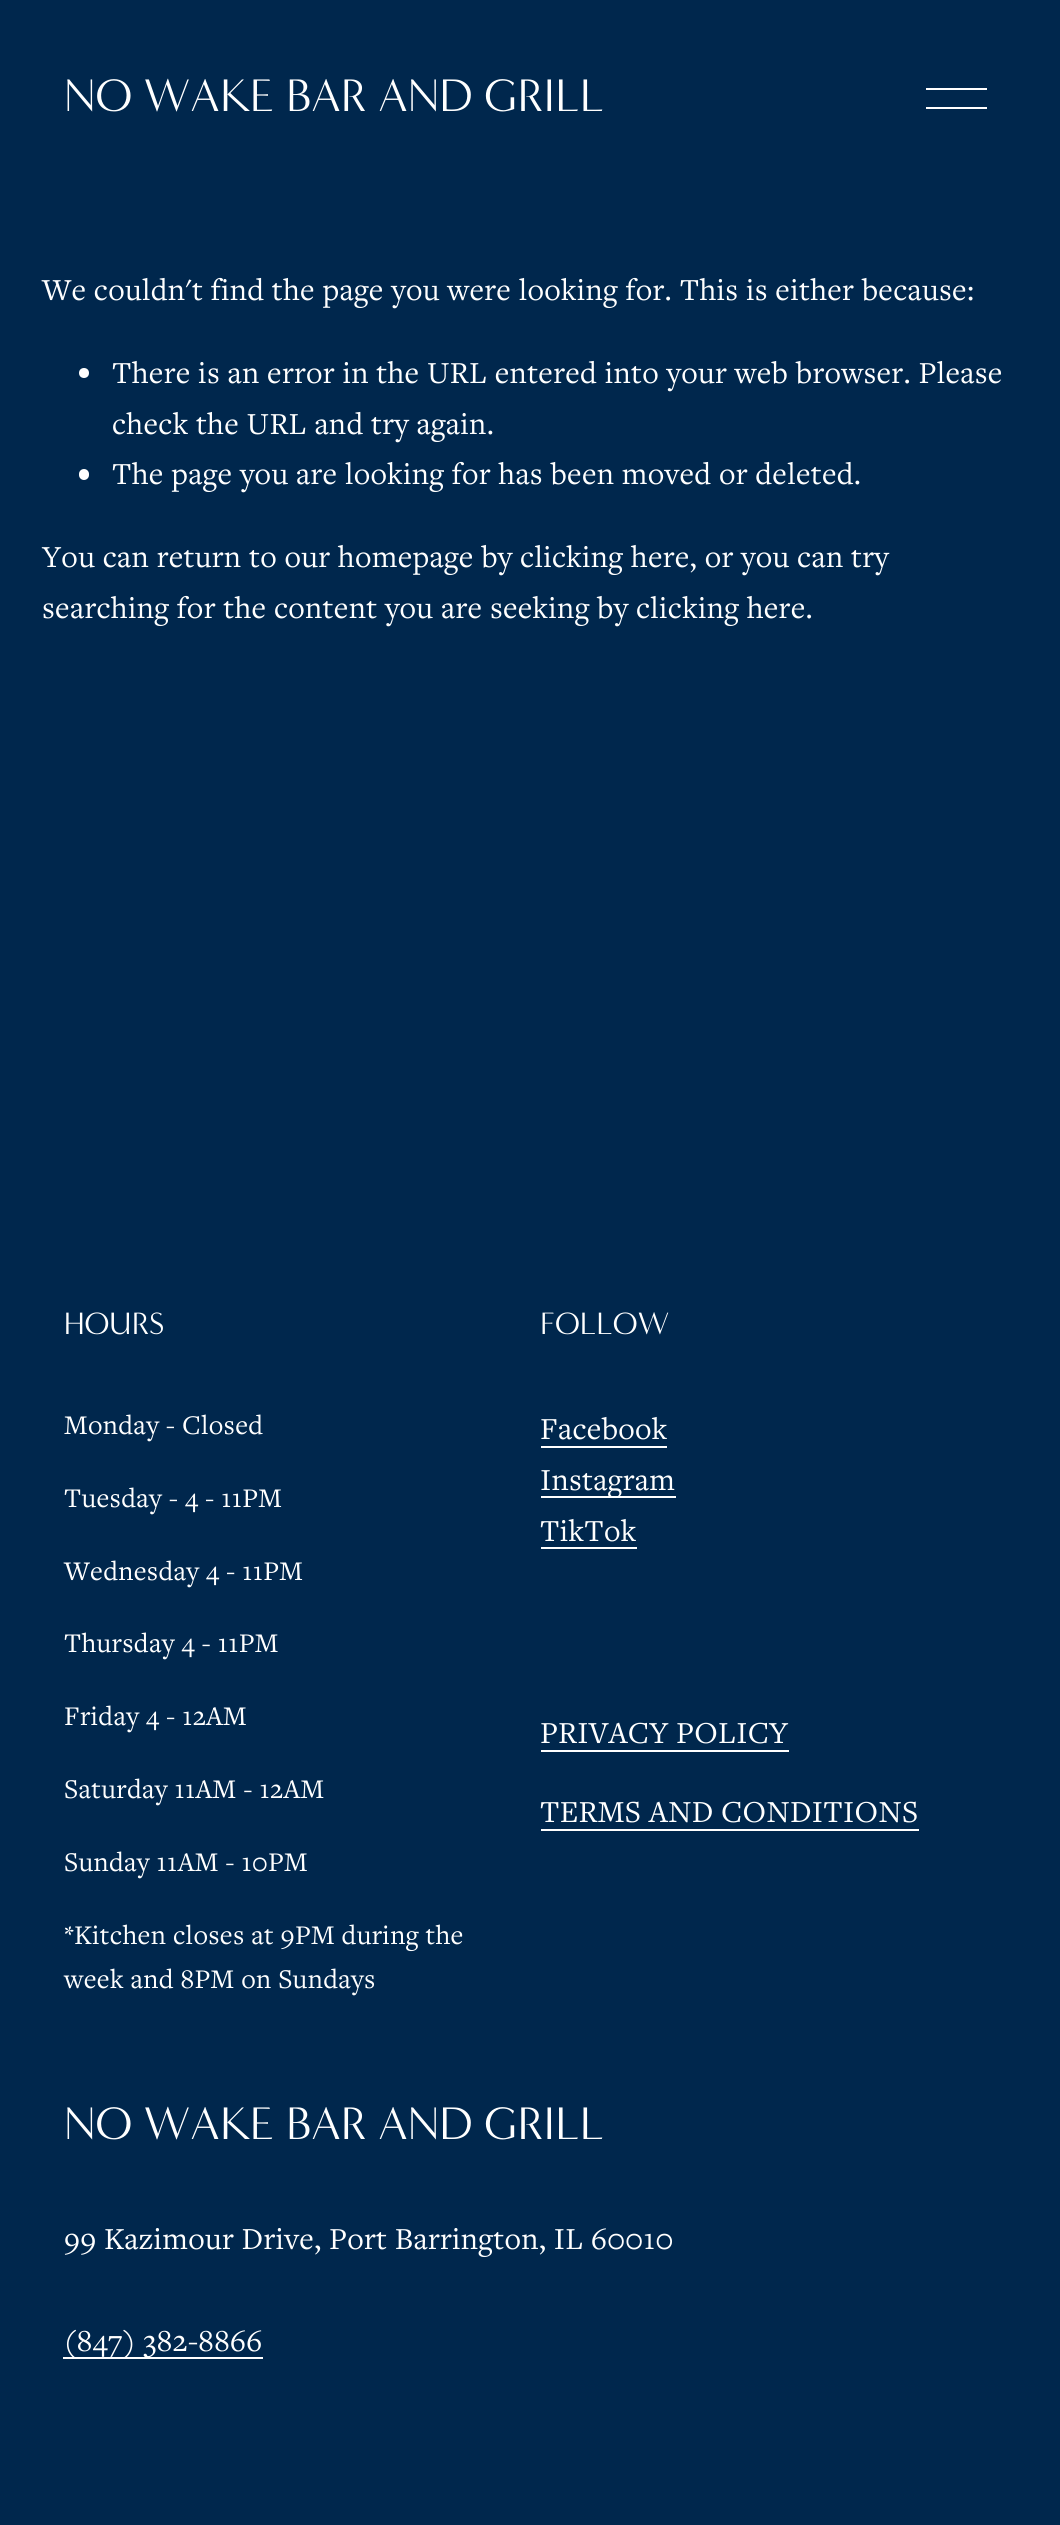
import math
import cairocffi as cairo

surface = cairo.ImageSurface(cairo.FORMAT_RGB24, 1060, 2525)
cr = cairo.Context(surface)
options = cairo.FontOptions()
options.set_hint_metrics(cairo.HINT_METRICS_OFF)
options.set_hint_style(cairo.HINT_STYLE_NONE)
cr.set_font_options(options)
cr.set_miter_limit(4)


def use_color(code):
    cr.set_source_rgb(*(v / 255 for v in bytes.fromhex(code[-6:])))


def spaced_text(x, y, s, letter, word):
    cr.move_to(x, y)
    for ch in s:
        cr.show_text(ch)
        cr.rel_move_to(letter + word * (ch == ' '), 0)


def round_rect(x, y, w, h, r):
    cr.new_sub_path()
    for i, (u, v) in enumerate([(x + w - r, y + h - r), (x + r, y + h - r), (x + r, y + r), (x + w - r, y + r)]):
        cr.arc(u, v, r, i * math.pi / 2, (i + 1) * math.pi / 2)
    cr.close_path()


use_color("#00274d")
cr.paint()
cr.select_font_face("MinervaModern")
cr.set_font_size(46.9)
use_color("#ffffff")
cr.move_to(64, 111)
cr.show_text("NO WAKE BAR AND GRILL")
cr.rectangle(926, 88, 61, 2)
cr.fill()
cr.rectangle(926, 107, 61, 2)
cr.fill()
cr.select_font_face("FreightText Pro")
cr.set_font_size(31.75)
spaced_text(42, 300, "We couldn't find the page you were looking for. This is either because:", 0.32, 0)
cr.new_path()
cr.arc(84, 373, 5, 0, 2 * math.pi)
cr.fill()
spaced_text(112, 383, "There is an error in the URL entered into your web browser. Please", 0.32, 0)
spaced_text(112, 434, "check the URL and try again.", 0.32, 0)
round_rect(79, 469, 10, 11, 5)
cr.fill()
spaced_text(112, 484, "The page you are looking for has been moved or deleted.", 0.32, 0)
spaced_text(42, 567, "You can return to our homepage by clicking here, or you can try", 0.32, 0)
spaced_text(42, 618, "searching for the content you are seeking by clicking here.", 0.32, 0)
cr.select_font_face("MinervaModern")
cr.move_to(64, 1334)
cr.show_text("HOURS")
cr.select_font_face("FreightText Pro")
cr.set_font_size(28)
spaced_text(64, 1434, "Monday - Closed", 0.32, 0)
spaced_text(64, 1507, "Tuesday - 4 - 11PM", 0.32, 0)
spaced_text(64, 1580, "Wednesday 4 - 11PM", 0.32, 0)
spaced_text(64, 1652, "Thursday 4 - 11PM", 0.32, 0)
spaced_text(64, 1725, "Friday 4 - 12AM", 0.32, 0)
spaced_text(64, 1798, "Saturday 11AM - 12AM", 0.32, 0)
spaced_text(64, 1871, "Sunday 11AM - 10PM", 0.32, 0)
spaced_text(64, 1944, "*Kitchen closes at 9PM during the", 0.32, 0)
spaced_text(64, 1988, "week and 8PM on Sundays", 0.32, 0)
cr.select_font_face("MinervaModern")
cr.set_font_size(31.75)
cr.move_to(540, 1334)
cr.show_text("FOLLOW")
cr.select_font_face("FreightText Pro")
spaced_text(540, 1439, "Facebook", 0.32, 0)
cr.rectangle(541, 1446, 126, 2)
cr.fill()
cr.rectangle(541, 1496, 135, 2)
cr.fill()
spaced_text(540, 1490, "Instagram", 0.32, 0)
spaced_text(540, 1541, "TikTok", 0.32, 0)
cr.rectangle(541, 1547, 96, 2)
cr.fill()
spaced_text(540, 1743, "PRIVACY POLICY", 0.32, 0)
cr.rectangle(541, 1750, 248, 2)
cr.fill()
spaced_text(540, 1822, "TERMS AND CONDITIONS", 0.32, 0)
cr.rectangle(541, 1829, 378, 2)
cr.fill()
cr.select_font_face("MinervaModern")
cr.set_font_size(46.9)
cr.move_to(64, 2139)
cr.show_text("NO WAKE BAR AND GRILL")
cr.select_font_face("FreightText Pro")
cr.set_font_size(31.75)
spaced_text(64, 2249, "99 Kazimour Drive, Port Barrington, IL 60010", 0.32, 0)
cr.rectangle(63, 2357, 200, 2)
cr.fill()
spaced_text(64, 2351, "(847) 382-8866", 0.32, 0)
surface.write_to_png("result.png")
